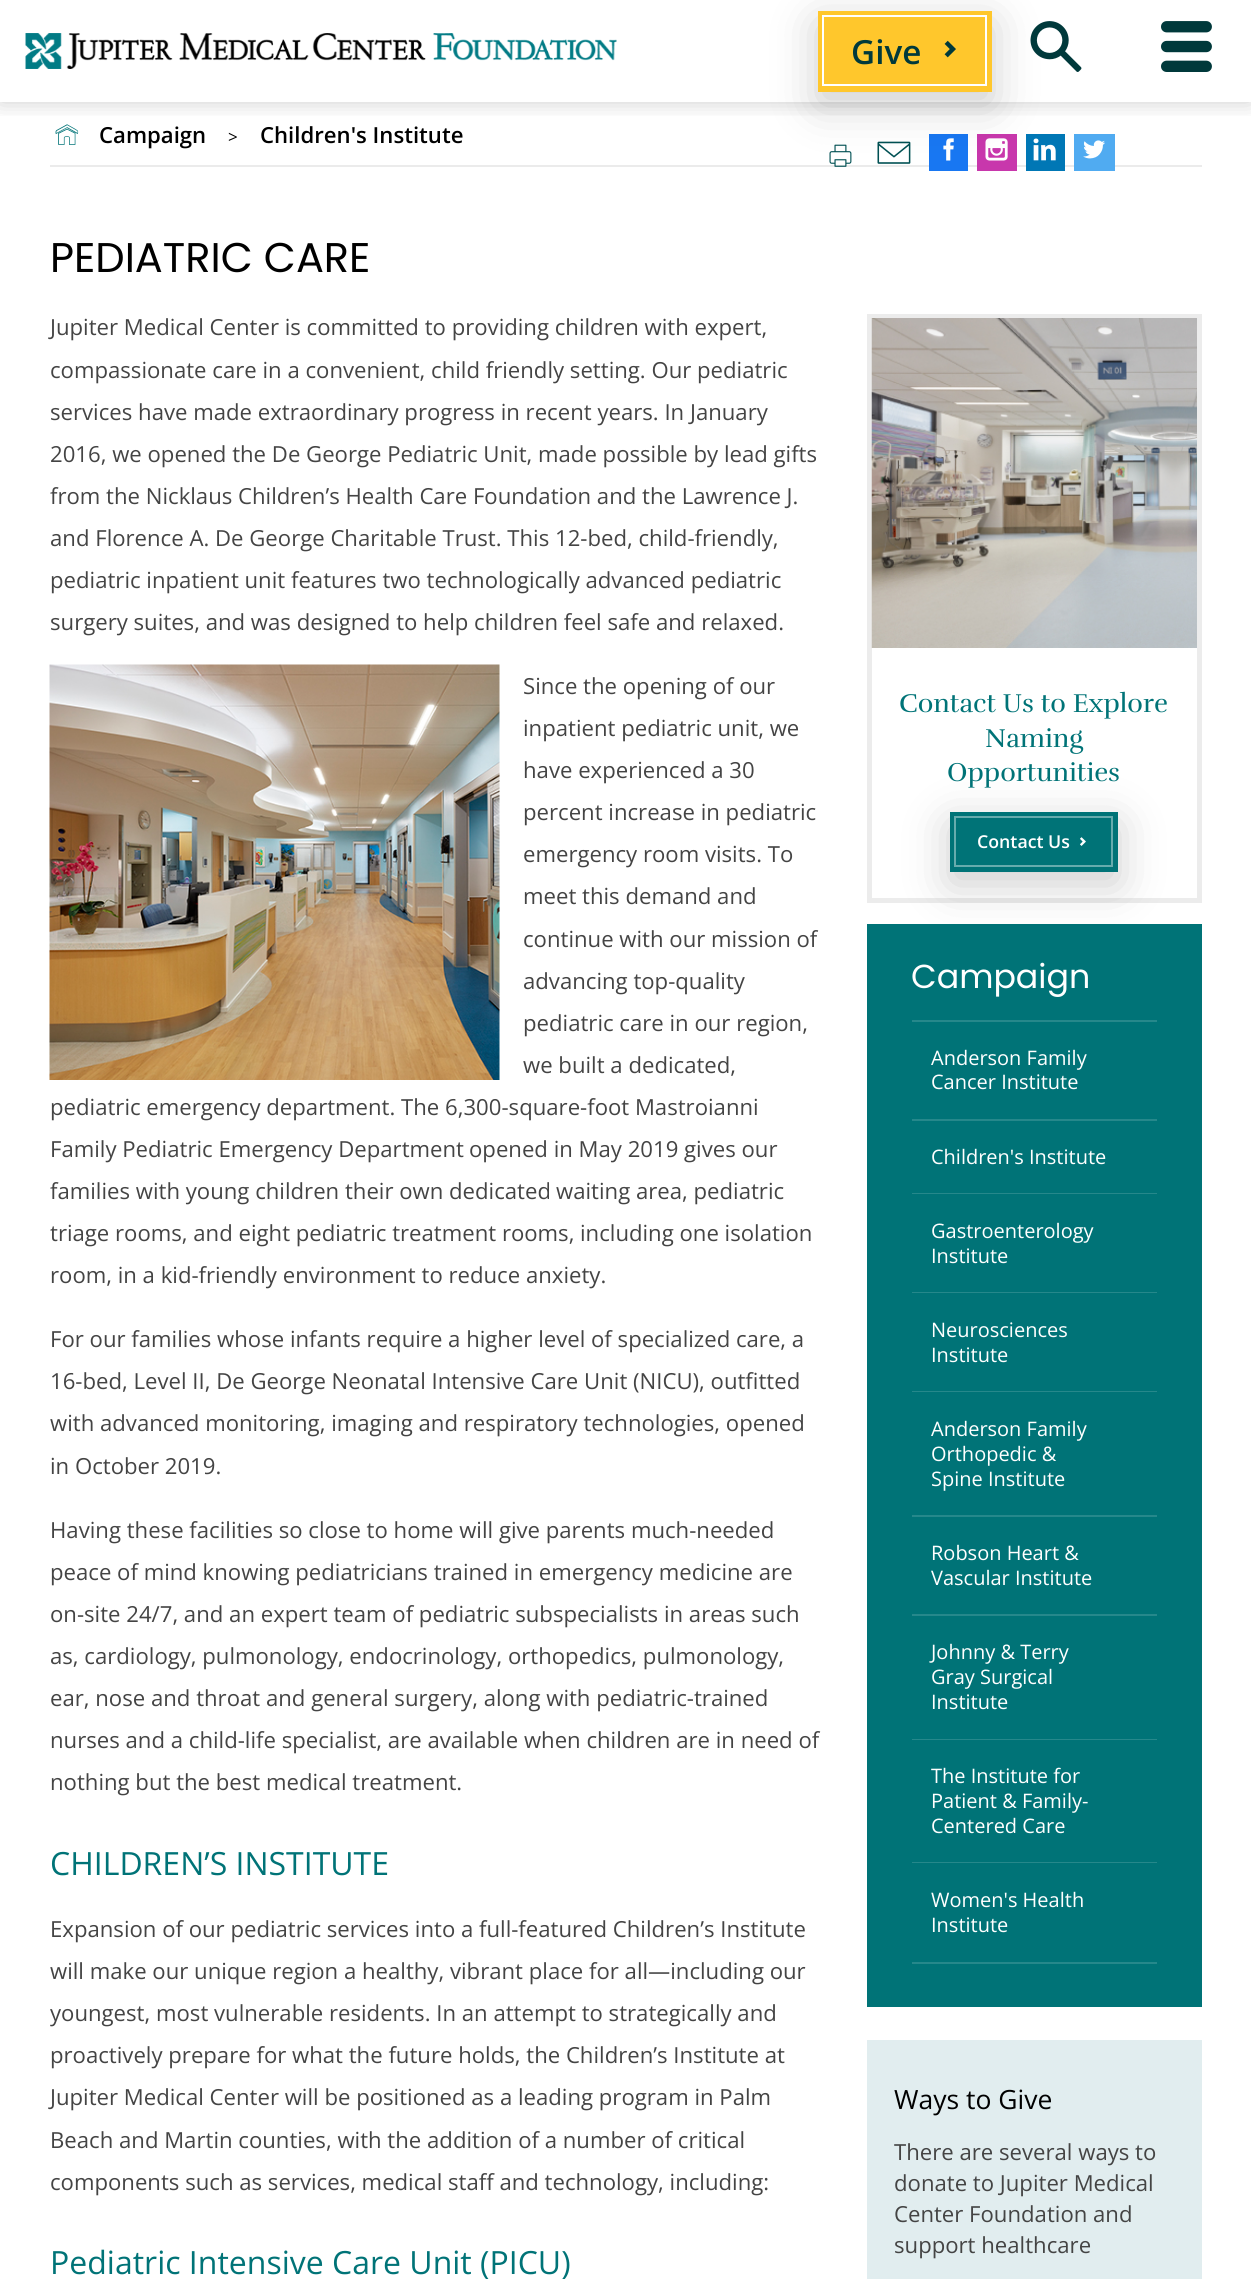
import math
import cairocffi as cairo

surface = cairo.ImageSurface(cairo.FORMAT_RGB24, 1251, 2279)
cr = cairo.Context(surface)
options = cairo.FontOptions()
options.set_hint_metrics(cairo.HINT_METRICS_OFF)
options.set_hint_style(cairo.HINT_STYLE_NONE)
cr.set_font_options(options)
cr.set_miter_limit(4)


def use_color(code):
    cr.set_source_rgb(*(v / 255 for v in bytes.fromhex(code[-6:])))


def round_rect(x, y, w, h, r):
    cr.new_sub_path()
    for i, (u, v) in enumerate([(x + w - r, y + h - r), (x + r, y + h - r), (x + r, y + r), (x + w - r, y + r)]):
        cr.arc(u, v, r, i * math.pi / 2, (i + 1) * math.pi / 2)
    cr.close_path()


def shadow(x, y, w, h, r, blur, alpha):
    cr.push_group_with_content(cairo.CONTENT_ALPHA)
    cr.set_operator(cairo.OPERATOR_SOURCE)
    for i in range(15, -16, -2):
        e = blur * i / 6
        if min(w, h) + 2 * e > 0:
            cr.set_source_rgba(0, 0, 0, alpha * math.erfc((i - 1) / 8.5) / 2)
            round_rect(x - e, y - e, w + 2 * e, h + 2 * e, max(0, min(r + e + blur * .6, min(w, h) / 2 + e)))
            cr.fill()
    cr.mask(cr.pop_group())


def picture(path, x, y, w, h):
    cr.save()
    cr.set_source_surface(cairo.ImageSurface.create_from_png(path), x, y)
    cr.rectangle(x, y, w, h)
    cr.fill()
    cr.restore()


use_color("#ffffff")
cr.paint()
picture("img5.png", 55, 124, 24, 21)
use_color("#ebebeb")
cr.rectangle(50, 165, 1152, 2)
cr.fill()
use_color("#1877f2")
cr.rectangle(929, 134, 39, 37)
cr.fill()
use_color("#c837ac")
cr.rectangle(977, 134, 40, 37)
cr.fill()
use_color("#0077b5")
cr.rectangle(1026, 134, 39, 37)
cr.fill()
use_color("#50abf1")
cr.rectangle(1074, 134, 41, 37)
cr.fill()
cr.save()
cr.rectangle(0, 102, 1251, 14)
cr.clip()
use_color("#000000")
shadow(0, 0, 1251, 102, 0, 11, 0.2)
cr.restore()
picture("img1.png", 25, 33, 592, 36)
picture("img6.png", 829, 144, 23, 23)
picture("img7.png", 877, 141, 34, 23)
picture("img8.png", 943, 138, 11, 23)
picture("img9.png", 985, 138, 23, 23)
picture("img10.png", 1033, 138, 23, 23)
use_color("#000000")
shadow(818, 23, 174, 81, 0, 22.5, 0.2)
use_color("#ffc72c")
cr.rectangle(818, 11, 174, 81)
cr.fill()
cr.rectangle(823, 16, 163, 69)
use_color("#ffffff")
cr.stroke()
cr.select_font_face("Open Sans SemiBold")
cr.set_font_size(33.25)
use_color("#00393b")
cr.move_to(851, 64)
cr.show_text("Give")
picture("img2.png", 944, 40, 12, 18)
picture("img3.png", 1030, 21, 52, 51)
picture("img4.png", 1161, 21, 51, 51)
cr.set_font_size(22.15)
use_color("#000000")
cr.move_to(99, 143)
cr.show_text("Campaign")
cr.select_font_face("Open Sans")
cr.set_font_size(17)
cr.move_to(228, 143)
cr.show_text(">")
cr.select_font_face("Open Sans SemiBold")
cr.set_font_size(22.15)
cr.move_to(260, 143)
cr.show_text("Children's Institute")
picture("img11.png", 1083, 140, 22, 19)
cr.select_font_face("Poppins")
cr.set_font_size(41.5)
cr.move_to(50, 272)
cr.show_text("PEDIATRIC CARE")
cr.select_font_face("Open Sans")
cr.set_font_size(22.15)
use_color("#444444")
cr.move_to(50, 335)
cr.show_text("Jupiter Medical Center is committed to providing children with expert,")
cr.move_to(50, 378)
cr.show_text("compassionate care in a convenient, child friendly setting. Our pediatric")
cr.move_to(50, 420)
cr.show_text("services have made extraordinary progress in recent years. In January")
cr.move_to(50, 462)
cr.show_text("2016, we opened the De George Pediatric Unit, made possible by lead gifts")
cr.move_to(50, 504)
cr.show_text("from the Nicklaus Children’s Health Care Foundation and the Lawrence J.")
cr.move_to(50, 546)
cr.show_text("and Florence A. De George Charitable Trust. This 12-bed, child-friendly,")
cr.move_to(50, 588)
cr.show_text("pediatric inpatient unit features two technologically advanced pediatric")
cr.move_to(50, 630)
cr.show_text("surgery suites, and was designed to help children feel safe and relaxed.")
picture("img12.png", 49, 664, 451, 416)
cr.move_to(523, 694)
cr.show_text("Since the opening of our")
cr.move_to(523, 736)
cr.show_text("inpatient pediatric unit, we")
cr.move_to(523, 778)
cr.show_text("have experienced a 30")
cr.move_to(523, 820)
cr.show_text("percent increase in pediatric")
cr.move_to(523, 862)
cr.show_text("emergency room visits. To")
cr.move_to(523, 904)
cr.show_text("meet this demand and")
cr.move_to(523, 947)
cr.show_text("continue with our mission of")
cr.move_to(523, 989)
cr.show_text("advancing top-quality")
cr.move_to(523, 1031)
cr.show_text("pediatric care in our region,")
cr.move_to(523, 1073)
cr.show_text("we built a dedicated,")
cr.move_to(50, 1115)
cr.show_text("pediatric emergency department. The 6,300-square-foot Mastroianni")
cr.move_to(50, 1157)
cr.show_text("Family Pediatric Emergency Department")
cr.move_to(469, 1157)
cr.show_text("opened in May 2019 gives our")
cr.move_to(50, 1199)
cr.show_text("families with young children their own dedicated")
cr.move_to(556, 1199)
cr.show_text("waiting area, pediatric")
cr.move_to(50, 1241)
cr.show_text("triage rooms, and eight pediatric treatment rooms,")
cr.move_to(580, 1241)
cr.show_text("including one isolation")
cr.move_to(50, 1283)
cr.show_text("room, in a kid-friendly environment to reduce anxiety.")
cr.move_to(50, 1347)
cr.show_text("For our families whose infants require a higher level of specialized care, a")
cr.move_to(50, 1389)
cr.show_text("16-bed, Level II, De George Neonatal Intensive Care Unit (NICU), outfitted")
cr.move_to(50, 1431)
cr.show_text("with advanced monitoring, imaging and respiratory technologies, opened")
cr.move_to(50, 1474)
cr.show_text("in October 2019.")
cr.move_to(50, 1538)
cr.show_text("Having these facilities so close to home will give parents much-needed")
cr.move_to(50, 1580)
cr.show_text("peace of mind knowing pediatricians trained in emergency medicine are")
cr.move_to(50, 1622)
cr.show_text("on-site 24/7, and an expert team of pediatric subspecialists in areas such")
cr.move_to(50, 1664)
cr.show_text("as, cardiology, pulmonology, endocrinology, orthopedics, pulmonology,")
cr.move_to(50, 1706)
cr.show_text("ear, nose and throat and general surgery, along with pediatric-trained")
cr.move_to(50, 1748)
cr.show_text("nurses and a child-life specialist, are available when children are in need of")
cr.move_to(50, 1790)
cr.show_text("nothing but the best medical treatment.")
cr.set_font_size(32)
use_color("#007377")
cr.move_to(50, 1875)
cr.show_text("CHILDREN’S INSTITUTE")
cr.set_font_size(22.15)
use_color("#444444")
cr.move_to(50, 1937)
cr.show_text("Expansion of our pediatric services into a full-featured Children’s Institute")
cr.move_to(50, 1979)
cr.show_text("will make our unique region a healthy, vibrant place for all—including our")
cr.move_to(50, 2021)
cr.show_text("youngest, most vulnerable residents. In an attempt to strategically and")
cr.move_to(50, 2063)
cr.show_text("proactively prepare for what the future holds, the Children’s Institute at")
cr.move_to(50, 2105)
cr.show_text("Jupiter Medical Center will be positioned as a leading program in Palm")
cr.move_to(50, 2148)
cr.show_text("Beach and Martin counties, with the addition of a number of critical")
cr.move_to(50, 2190)
cr.show_text("components such as services, medical staff and technology, including:")
cr.set_font_size(32)
use_color("#007377")
cr.move_to(50, 2274)
cr.show_text("Pediatric Intensive Care Unit (PICU)")
cr.rectangle(869.5, 316.5, 330, 584)
use_color("#ececec")
cr.set_line_width(5)
cr.stroke()
picture("img13.png", 871, 318, 326, 330)
cr.select_font_face("Rufina")
cr.set_font_size(26.5)
use_color("#007377")
cr.move_to(899, 712)
cr.show_text("Contact Us to Explore")
cr.move_to(985, 747)
cr.show_text("Naming")
cr.move_to(947, 781)
cr.show_text("Opportunities")
cr.rectangle(867, 924, 335, 1083)
cr.fill()
use_color("#000000")
shadow(950, 824, 168, 60, 0, 22.5, 0.2)
use_color("#007377")
cr.rectangle(950, 812, 168, 60)
cr.fill()
cr.rectangle(955, 817, 157, 49)
use_color("#66abad")
cr.set_line_width(2)
cr.stroke()
cr.select_font_face("Open Sans SemiBold")
cr.set_font_size(17.75)
use_color("#ffffff")
cr.move_to(977, 848)
cr.show_text("Contact Us")
picture("img14.png", 1080, 837, 6, 9)
use_color("#26888b")
cr.rectangle(912, 1020, 245, 2)
cr.fill()
cr.select_font_face("Poppins")
cr.set_font_size(33.25)
use_color("#ffffff")
cr.move_to(911, 988)
cr.show_text("Campaign")
use_color("#26888b")
cr.rectangle(912, 1119, 245, 2)
cr.fill()
cr.select_font_face("Open Sans")
cr.set_font_size(20)
use_color("#ffffff")
cr.move_to(931, 1065)
cr.show_text("Anderson Family")
cr.move_to(931, 1089)
cr.show_text("Cancer Institute")
use_color("#26888b")
cr.rectangle(912, 1193, 245, 1)
cr.fill()
use_color("#ffffff")
cr.move_to(931, 1164)
cr.show_text("Children's Institute")
use_color("#26888b")
cr.rectangle(912, 1292, 245, 1)
cr.fill()
use_color("#ffffff")
cr.move_to(931, 1238)
cr.show_text("Gastroenterology")
cr.move_to(931, 1263)
cr.show_text("Institute")
use_color("#26888b")
cr.rectangle(912, 1391, 245, 1)
cr.fill()
use_color("#ffffff")
cr.move_to(931, 1337)
cr.show_text("Neurosciences")
cr.move_to(931, 1362)
cr.show_text("Institute")
use_color("#26888b")
cr.rectangle(912, 1515, 245, 2)
cr.fill()
use_color("#ffffff")
cr.move_to(931, 1436)
cr.show_text("Anderson Family")
cr.move_to(931, 1461)
cr.show_text("Orthopedic &")
cr.move_to(931, 1486)
cr.show_text("Spine Institute")
use_color("#26888b")
cr.rectangle(912, 1614, 245, 2)
cr.fill()
use_color("#ffffff")
cr.move_to(931, 1560)
cr.show_text("Robson Heart &")
cr.move_to(931, 1585)
cr.show_text("Vascular Institute")
use_color("#26888b")
cr.rectangle(912, 1739, 245, 1)
cr.fill()
use_color("#ffffff")
cr.move_to(931, 1659)
cr.show_text("Johnny & Terry")
cr.move_to(931, 1684)
cr.show_text("Gray Surgical")
cr.move_to(931, 1709)
cr.show_text("Institute")
use_color("#26888b")
cr.rectangle(912, 1862, 245, 1)
cr.fill()
use_color("#ffffff")
cr.move_to(931, 1783)
cr.show_text("The Institute for")
cr.move_to(931, 1808)
cr.show_text("Patient & Family-")
cr.move_to(931, 1833)
cr.show_text("Centered Care")
use_color("#26888b")
cr.rectangle(912, 1962, 245, 2)
cr.fill()
use_color("#ffffff")
cr.move_to(931, 1907)
cr.show_text("Women's Health")
cr.move_to(931, 1932)
cr.show_text("Institute")
use_color("#e1edef")
cr.rectangle(867, 2040, 335, 239)
cr.fill()
cr.set_font_size(26.5)
use_color("#000000")
cr.move_to(894, 2109)
cr.show_text("Ways to Give")
cr.set_font_size(22.15)
use_color("#444444")
cr.move_to(894, 2160)
cr.show_text("There are several ways to")
cr.move_to(894, 2191)
cr.show_text("donate to Jupiter Medical")
cr.move_to(894, 2222)
cr.show_text("Center Foundation and")
cr.move_to(894, 2253)
cr.show_text("support healthcare")
surface.write_to_png("result.png")
